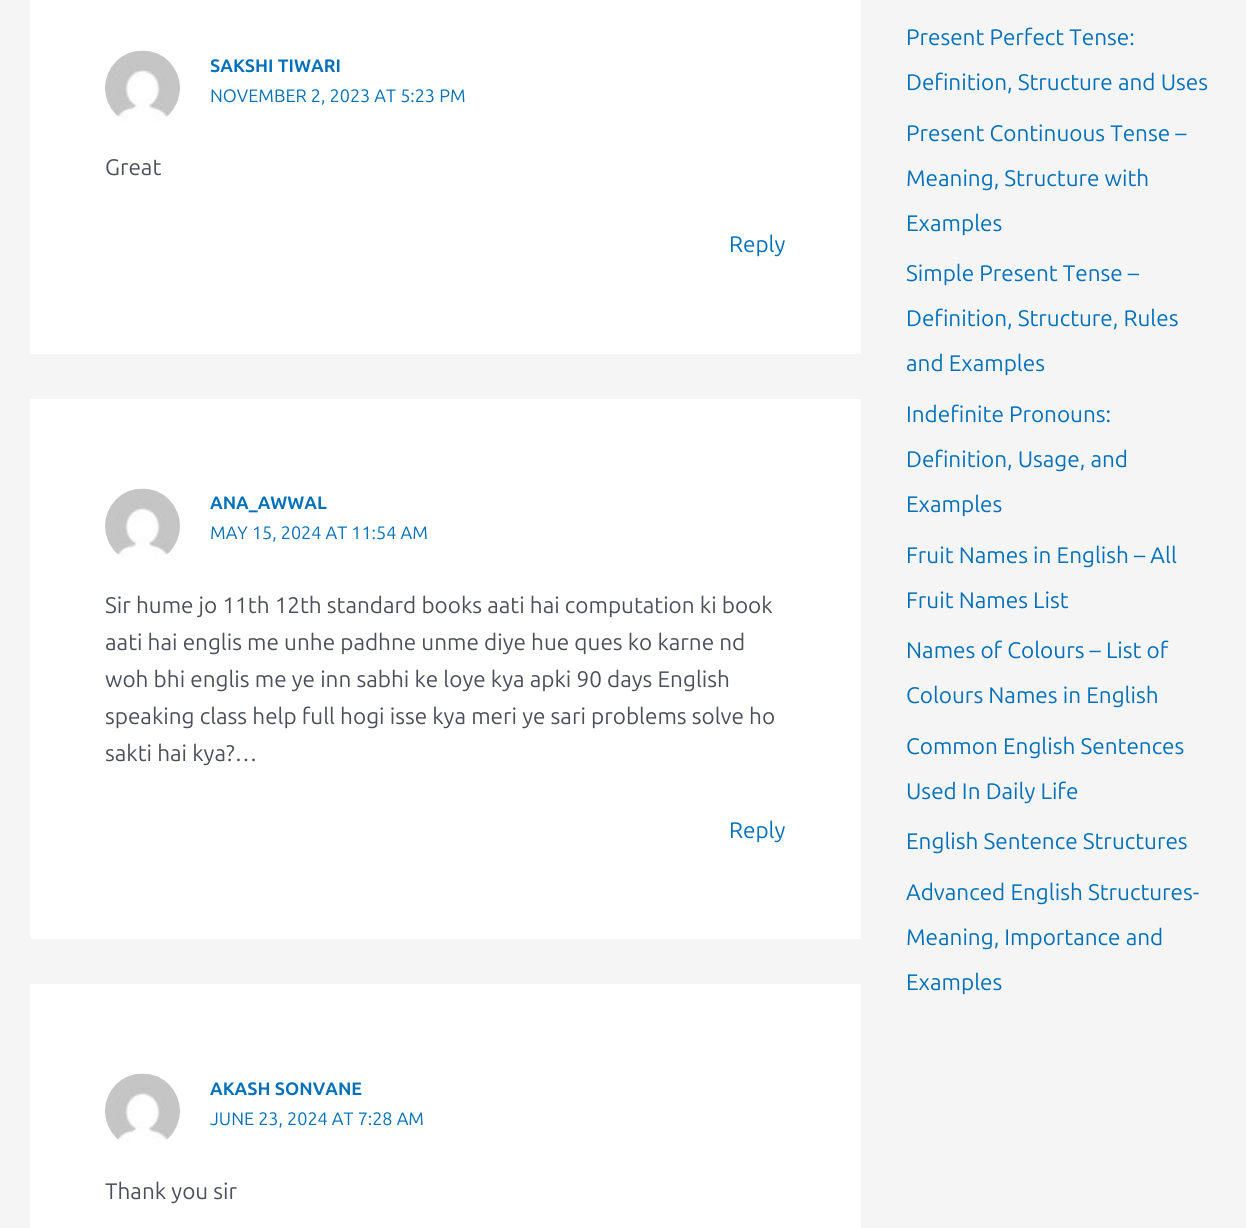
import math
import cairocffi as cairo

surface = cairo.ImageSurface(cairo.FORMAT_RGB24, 1246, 1228)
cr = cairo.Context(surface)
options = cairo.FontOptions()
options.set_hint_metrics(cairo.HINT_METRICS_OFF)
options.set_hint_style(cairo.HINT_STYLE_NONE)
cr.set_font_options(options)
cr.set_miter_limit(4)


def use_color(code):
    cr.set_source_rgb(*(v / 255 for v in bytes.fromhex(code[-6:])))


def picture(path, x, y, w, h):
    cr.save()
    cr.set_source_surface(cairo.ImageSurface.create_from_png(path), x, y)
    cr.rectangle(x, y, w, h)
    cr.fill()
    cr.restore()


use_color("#f5f5f5")
cr.paint()
use_color("#ffffff")
cr.rectangle(30, 0, 831, 354)
cr.fill()
picture("img1.png", 105, 50, 75, 72)
cr.select_font_face("Ubuntu", cairo.FONT_SLANT_NORMAL, cairo.FONT_WEIGHT_BOLD)
cr.set_font_size(18)
use_color("#0170b9")
cr.move_to(210, 72)
cr.show_text("SAKSHI TIWARI")
cr.select_font_face("Ubuntu")
cr.move_to(210, 102)
cr.show_text("NOVEMBER 2, 2023 AT 5:23 PM")
cr.set_font_size(22.5)
use_color("#4b4f58")
cr.move_to(105, 175)
cr.show_text("Great")
use_color("#0170b9")
cr.move_to(729, 252)
cr.show_text("Reply")
use_color("#ffffff")
cr.rectangle(30, 399, 831, 540)
cr.fill()
picture("img2.png", 105, 488, 75, 72)
cr.select_font_face("Ubuntu", cairo.FONT_SLANT_NORMAL, cairo.FONT_WEIGHT_BOLD)
cr.set_font_size(18)
use_color("#0170b9")
cr.move_to(210, 509)
cr.show_text("ANA_AWWAL")
cr.select_font_face("Ubuntu")
cr.move_to(210, 539)
cr.show_text("MAY 15, 2024 AT 11:54 AM")
cr.set_font_size(22.5)
use_color("#4b4f58")
cr.move_to(105, 613)
cr.show_text("Sir hume jo 11th 12th standard books aati hai computation ki book")
cr.move_to(105, 650)
cr.show_text("aati hai englis me unhe padhne unme diye hue ques ko karne nd")
cr.move_to(105, 687)
cr.show_text("woh bhi englis me ye inn sabhi ke loye kya apki 90 days English")
cr.move_to(105, 724)
cr.show_text("speaking class help full hogi isse kya meri ye sari problems solve ho")
cr.move_to(105, 761)
cr.show_text("sakti hai kya?…")
use_color("#0170b9")
cr.move_to(729, 838)
cr.show_text("Reply")
use_color("#ffffff")
cr.rectangle(30, 984, 831, 244)
cr.fill()
picture("img1.png", 105, 1073, 75, 72)
cr.select_font_face("Ubuntu", cairo.FONT_SLANT_NORMAL, cairo.FONT_WEIGHT_BOLD)
cr.set_font_size(18)
use_color("#0170b9")
cr.move_to(210, 1095)
cr.show_text("AKASH SONVANE")
cr.select_font_face("Ubuntu")
cr.move_to(210, 1125)
cr.show_text("JUNE 23, 2024 AT 7:28 AM")
cr.set_font_size(22.5)
use_color("#4b4f58")
cr.move_to(105, 1199)
cr.show_text("Thank you sir")
use_color("#0170b9")
cr.move_to(906, 45)
cr.show_text("Present Perfect Tense:")
cr.move_to(906, 90)
cr.show_text("Definition, Structure and Uses")
cr.move_to(906, 141)
cr.show_text("Present Continuous Tense –")
cr.move_to(906, 186)
cr.show_text("Meaning, Structure with")
cr.move_to(906, 231)
cr.show_text("Examples")
cr.move_to(906, 281)
cr.show_text("Simple Present Tense –")
cr.move_to(906, 326)
cr.show_text("Definition, Structure, Rules")
cr.move_to(906, 371)
cr.show_text("and Examples")
cr.move_to(906, 422)
cr.show_text("Indefinite Pronouns:")
cr.move_to(906, 467)
cr.show_text("Definition, Usage, and")
cr.move_to(906, 512)
cr.show_text("Examples")
cr.move_to(906, 563)
cr.show_text("Fruit Names in English – All")
cr.move_to(906, 608)
cr.show_text("Fruit Names List")
cr.move_to(906, 658)
cr.show_text("Names of Colours – List of")
cr.move_to(906, 703)
cr.show_text("Colours Names in English")
cr.move_to(906, 754)
cr.show_text("Common English Sentences")
cr.move_to(906, 799)
cr.show_text("Used In Daily Life")
cr.move_to(906, 849)
cr.show_text("English Sentence Structures")
cr.move_to(906, 900)
cr.show_text("Advanced English Structures-")
cr.move_to(906, 945)
cr.show_text("Meaning, Importance and")
cr.move_to(906, 990)
cr.show_text("Examples")
surface.write_to_png("result.png")
